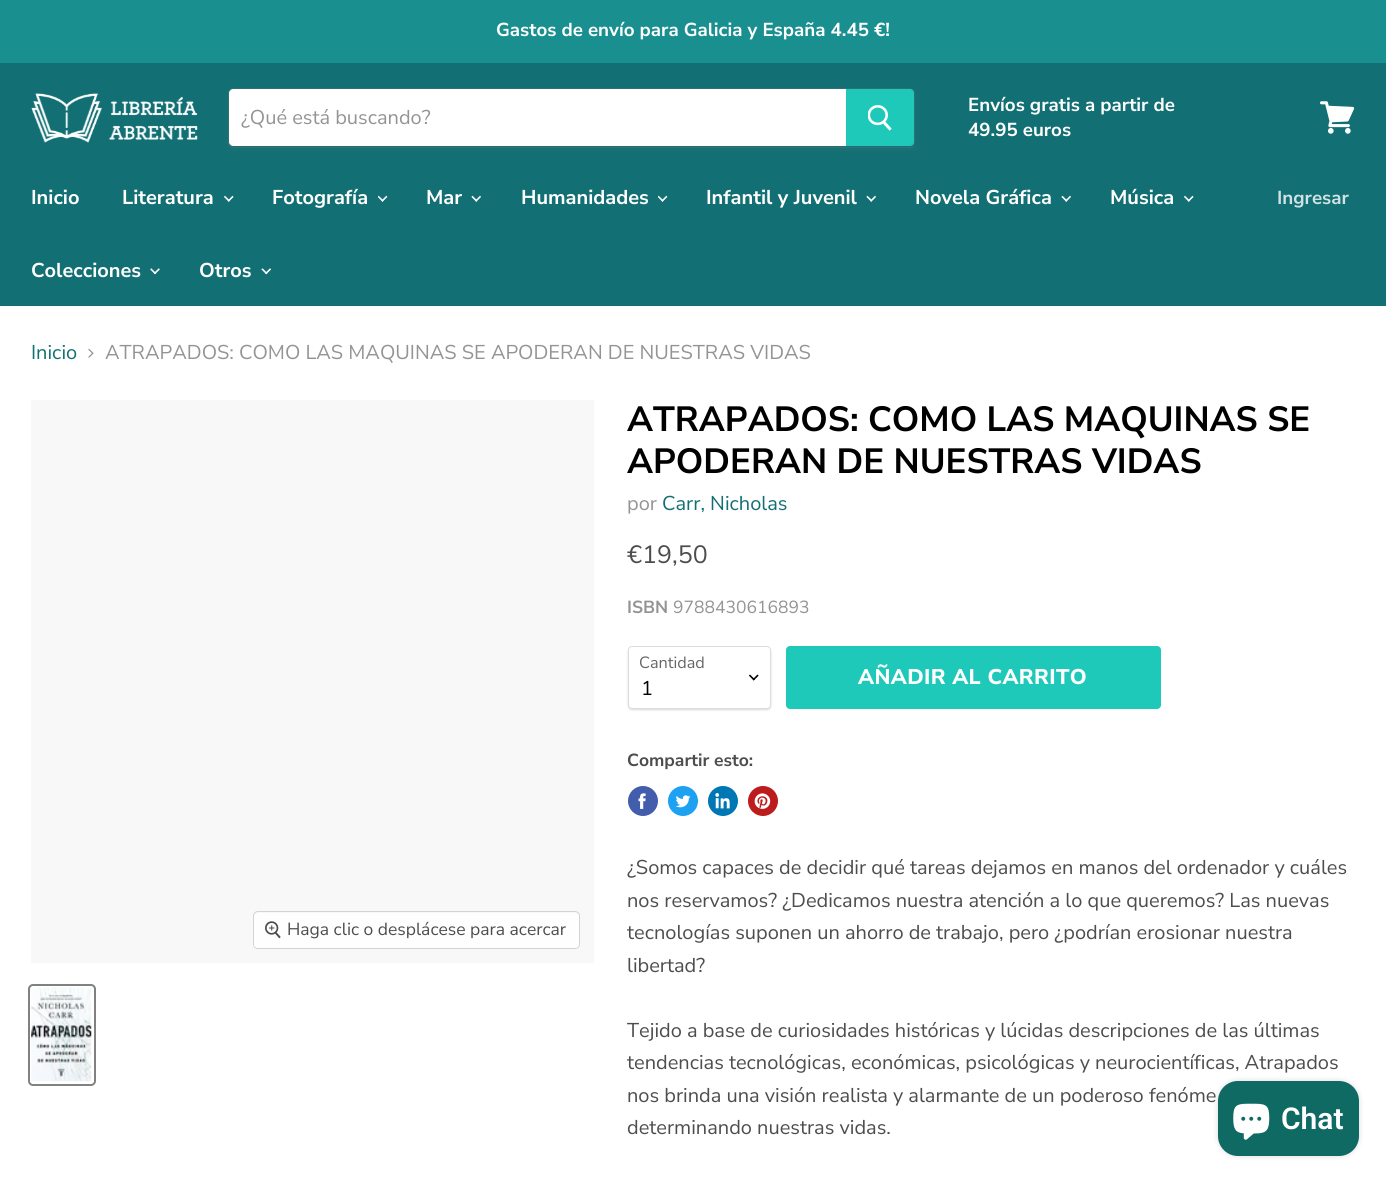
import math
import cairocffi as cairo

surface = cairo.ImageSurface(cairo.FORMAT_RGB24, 1386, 1182)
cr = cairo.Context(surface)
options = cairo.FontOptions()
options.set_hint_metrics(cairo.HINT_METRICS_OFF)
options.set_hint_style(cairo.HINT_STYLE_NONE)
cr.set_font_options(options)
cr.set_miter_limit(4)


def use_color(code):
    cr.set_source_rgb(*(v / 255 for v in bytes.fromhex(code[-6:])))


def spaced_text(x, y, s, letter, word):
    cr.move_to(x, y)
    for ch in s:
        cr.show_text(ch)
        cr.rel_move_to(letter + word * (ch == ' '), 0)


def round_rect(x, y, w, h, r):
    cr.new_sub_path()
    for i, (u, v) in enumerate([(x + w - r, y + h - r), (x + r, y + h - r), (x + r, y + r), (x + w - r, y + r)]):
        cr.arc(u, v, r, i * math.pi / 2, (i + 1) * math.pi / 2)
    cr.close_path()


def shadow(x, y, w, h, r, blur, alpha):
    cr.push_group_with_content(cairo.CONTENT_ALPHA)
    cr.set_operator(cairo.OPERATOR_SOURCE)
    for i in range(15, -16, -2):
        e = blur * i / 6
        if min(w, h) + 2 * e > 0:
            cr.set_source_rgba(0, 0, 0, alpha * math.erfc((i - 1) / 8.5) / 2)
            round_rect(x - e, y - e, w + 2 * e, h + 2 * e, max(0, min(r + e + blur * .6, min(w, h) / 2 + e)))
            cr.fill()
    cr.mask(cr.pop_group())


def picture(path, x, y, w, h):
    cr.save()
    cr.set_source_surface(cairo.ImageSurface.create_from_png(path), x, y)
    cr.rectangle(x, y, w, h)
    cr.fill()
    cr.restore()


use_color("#ffffff")
cr.paint()
use_color("#198f8f")
cr.rectangle(0, 0, 1386, 63)
cr.fill()
cr.select_font_face("Nunito Sans", cairo.FONT_SLANT_NORMAL, cairo.FONT_WEIGHT_BOLD)
cr.set_font_size(18.75)
use_color("#ffffff")
cr.move_to(496, 36)
cr.show_text("Gastos de envío para Galicia y España 4.45 €!")
use_color("#126f73")
cr.rectangle(0, 63, 1386, 243)
cr.fill()
picture("img1.png", 31, 93, 167, 50)
use_color("#808080")
shadow(228, 90, 687, 60, 5, 2, 0.11)
round_rect(228.5, 88.5, 686, 59, 4.5)
cr.set_source_rgba(0.502, 0.502, 0.502, 0.2)
cr.set_line_width(1)
cr.stroke()
use_color("#ffffff")
cr.new_path()
cr.move_to(233, 89)
cr.line_to(846, 89)
cr.line_to(846, 146)
cr.line_to(233, 146)
cr.curve_to(231, 146, 229, 144, 229, 142)
cr.line_to(229, 93)
cr.curve_to(229, 91, 231, 89, 233, 89)
cr.close_path()
cr.fill()
cr.select_font_face("Nunito Sans")
cr.set_font_size(20)
use_color("#949494")
cr.move_to(241, 124)
cr.show_text("¿Qué está buscando?")
use_color("#1fc9ba")
cr.new_path()
cr.move_to(846.5, 89.5)
cr.line_to(910, 89.5)
cr.curve_to(912, 89.5, 913.5, 91, 913.5, 93)
cr.line_to(913.5, 142)
cr.curve_to(913.5, 144, 912, 145.5, 910, 145.5)
cr.line_to(846.5, 145.5)
cr.close_path()
cr.fill_preserve()
cr.stroke()
picture("img2.png", 868, 105, 24, 26)
cr.select_font_face("Nunito Sans", cairo.FONT_SLANT_NORMAL, cairo.FONT_WEIGHT_BOLD)
cr.set_font_size(18.75)
use_color("#ffffff")
cr.move_to(968, 111)
cr.show_text("Envíos gratis a partir de")
cr.move_to(968, 136)
cr.show_text("49.95 euros")
picture("img3.png", 1320, 101, 35, 33)
cr.set_font_size(20)
cr.move_to(31, 204)
cr.show_text("Inicio")
cr.move_to(122, 204)
cr.show_text("Literatura")
picture("img4.png", 224, 195, 10, 7)
cr.move_to(272, 204)
cr.show_text("Fotografía")
picture("img5.png", 378, 195, 10, 7)
cr.move_to(426, 204)
cr.show_text("Mar")
picture("img6.png", 471, 195, 10, 7)
cr.move_to(521, 204)
cr.show_text("Humanidades")
picture("img5.png", 658, 195, 10, 7)
cr.move_to(706, 204)
cr.show_text("Infantil y Juvenil")
picture("img6.png", 866, 195, 10, 7)
cr.move_to(915, 204)
cr.show_text("Novela Gráfica")
picture("img6.png", 1061, 195, 10, 7)
cr.move_to(1110, 204)
cr.show_text("Música")
picture("img4.png", 1184, 195, 10, 7)
cr.move_to(31, 277)
cr.show_text("Colecciones")
picture("img7.png", 150, 268, 10, 7)
cr.move_to(199, 277)
cr.show_text("Otros")
picture("img8.png", 261, 268, 10, 7)
cr.set_font_size(18.75)
use_color("#d0e2e3")
cr.move_to(1277, 204)
cr.show_text("Ingresar")
cr.select_font_face("Nunito Sans")
cr.set_font_size(20)
use_color("#126f73")
cr.move_to(31, 359)
cr.show_text("Inicio")
picture("img9.png", 88, 348, 6, 10)
use_color("#949494")
cr.move_to(105, 359)
cr.show_text("ATRAPADOS: COMO LAS MAQUINAS SE APODERAN DE NUESTRAS VIDAS")
use_color("#f8f8f8")
cr.rectangle(31, 400, 563, 563)
cr.fill()
round_rect(253.5, 911.5, 326, 37, 4.5)
use_color("#d3d3d3")
cr.stroke()
cr.set_source_rgba(1, 1, 1, 0.9)
round_rect(254, 913, 325, 35, 4)
cr.fill()
picture("img10.png", 265, 921, 16, 18)
cr.set_font_size(17.5)
use_color("#4d4d4d")
cr.move_to(287, 935)
cr.show_text("Haga clic o desplácese para acercar")
round_rect(29, 985, 66, 100, 4)
use_color("#818181")
cr.set_line_width(2)
cr.stroke()
picture("img11.png", 31, 987, 61, 95)
cr.select_font_face("Nunito Sans", cairo.FONT_SLANT_NORMAL, cairo.FONT_WEIGHT_BOLD)
cr.set_font_size(35)
use_color("#000000")
cr.move_to(627, 431)
cr.show_text("ATRAPADOS: COMO LAS MAQUINAS SE")
cr.move_to(627, 473)
cr.show_text("APODERAN DE NUESTRAS VIDAS")
cr.select_font_face("Nunito Sans")
cr.set_font_size(20)
use_color("#949494")
cr.move_to(627, 510)
cr.show_text("por")
use_color("#126f73")
cr.move_to(662, 510)
cr.show_text("Carr, Nicholas")
cr.set_font_size(25)
use_color("#4d4d4d")
cr.move_to(627, 563)
cr.show_text("€19,50")
cr.select_font_face("Nunito Sans", cairo.FONT_SLANT_NORMAL, cairo.FONT_WEIGHT_BOLD)
cr.set_font_size(17.5)
use_color("#949494")
cr.move_to(627, 613)
cr.show_text("ISBN")
cr.select_font_face("Nunito Sans")
cr.move_to(673, 613)
cr.show_text("9788430616893")
use_color("#000000")
shadow(628, 648, 143, 62, 4, 1, 0.15)
use_color("#ffffff")
round_rect(628.5, 646.5, 142, 62, 3.5)
cr.fill_preserve()
use_color("#dddddd")
cr.set_line_width(1)
cr.stroke()
cr.set_font_size(16.25)
use_color("#666666")
cr.move_to(639, 668)
cr.show_text("Cantidad")
picture("img12.png", 749, 674, 10, 7)
cr.set_font_size(20)
use_color("#000000")
cr.move_to(641, 695)
cr.show_text("1")
use_color("#1fc9ba")
round_rect(786.5, 646.5, 374, 62, 3.5)
cr.fill_preserve()
cr.stroke()
cr.select_font_face("Nunito Sans ExtraBold")
cr.set_font_size(21.25)
use_color("#ffffff")
spaced_text(858, 684, "AÑADIR AL CARRITO", 0.4, 0)
cr.select_font_face("Nunito Sans", cairo.FONT_SLANT_NORMAL, cairo.FONT_WEIGHT_BOLD)
cr.set_font_size(17.5)
use_color("#4d4d4d")
cr.move_to(627, 766)
cr.show_text("Compartir esto:")
use_color("#425dab")
cr.new_path()
cr.arc(643, 801, 15, 0, 2 * math.pi)
cr.fill()
picture("img13.png", 638, 793, 8, 16)
use_color("#1da1f2")
cr.arc(683, 801, 15, 0, 2 * math.pi)
cr.fill()
picture("img14.png", 675, 795, 16, 13)
use_color("#0077b5")
cr.arc(723, 801, 15, 0, 2 * math.pi)
cr.fill()
picture("img15.png", 715, 793, 15, 16)
use_color("#bd1c1c")
cr.arc(763, 801, 15, 0, 2 * math.pi)
cr.fill()
picture("img16.png", 754, 793, 17, 16)
cr.select_font_face("Nunito Sans")
cr.set_font_size(20)
use_color("#4d4d4d")
cr.move_to(627, 874)
cr.show_text("¿Somos capaces de decidir qué tareas dejamos en manos del ordenador y cuáles")
cr.move_to(627, 907)
cr.show_text("nos reservamos? ¿Dedicamos nuestra atención a lo que queremos? Las nuevas")
cr.move_to(627, 939)
cr.show_text("tecnologías suponen un ahorro de trabajo, pero ¿podrían erosionar nuestra")
cr.move_to(627, 972)
cr.show_text("libertad?")
cr.move_to(627, 1037)
cr.show_text("Tejido a base de curiosidades históricas y lúcidas descripciones de las últimas")
cr.move_to(627, 1069)
cr.show_text("tendencias tecnológicas, económicas, psicológicas y neurocientíficas, Atrapados")
cr.move_to(627, 1102)
cr.show_text("nos brinda una visión realista y alarmante de un poderoso fenóme")
cr.move_to(627, 1134)
cr.show_text("determinando nuestras vidas.")
use_color("#000000")
shadow(1218, 1081, 141, 75, 20, 3, 0.15)
use_color("#0e6a63")
round_rect(1218, 1081, 141, 75, 20)
cr.fill()
picture("img17.png", 1233, 1103, 37, 37)
cr.select_font_face("Roboto SemiBold")
cr.set_font_size(30)
use_color("#ffffff")
cr.move_to(1281, 1129)
cr.show_text("Chat")
surface.write_to_png("result.png")
